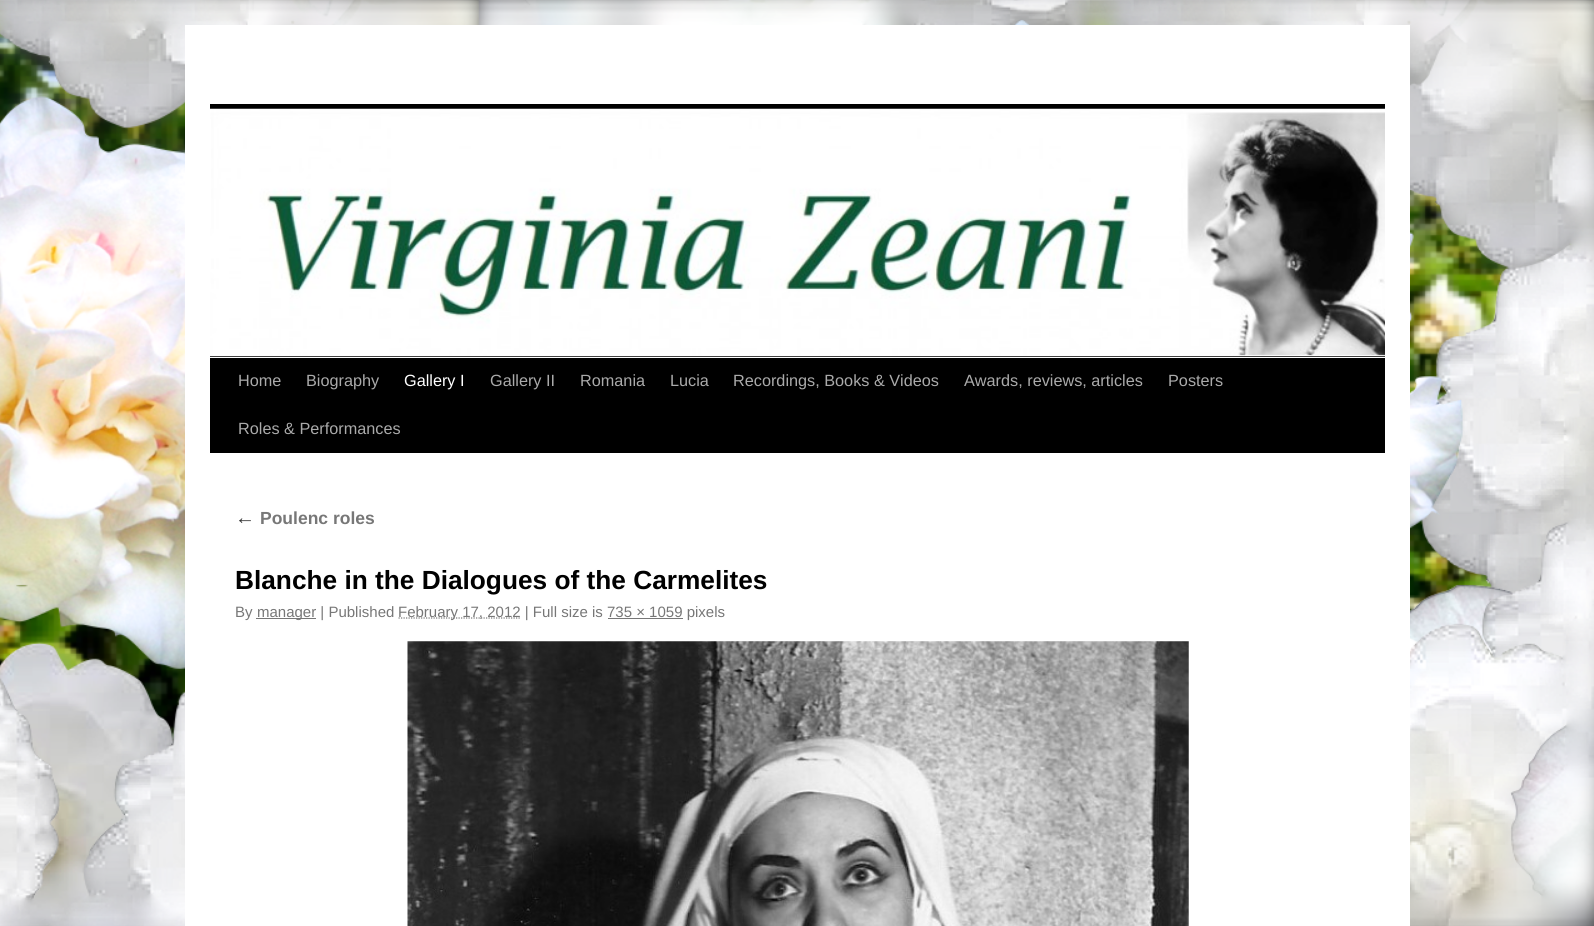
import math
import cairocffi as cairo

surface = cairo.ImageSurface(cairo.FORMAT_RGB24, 1594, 926)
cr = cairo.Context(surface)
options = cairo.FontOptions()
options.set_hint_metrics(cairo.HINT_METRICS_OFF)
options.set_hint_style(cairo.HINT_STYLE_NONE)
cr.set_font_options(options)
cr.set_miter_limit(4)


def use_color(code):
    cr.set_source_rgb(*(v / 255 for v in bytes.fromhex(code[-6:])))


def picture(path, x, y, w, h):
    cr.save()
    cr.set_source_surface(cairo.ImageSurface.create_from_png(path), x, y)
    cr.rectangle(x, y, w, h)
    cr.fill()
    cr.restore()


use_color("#ffffff")
cr.paint()
picture("img1.png", 0, 0, 1594, 926)
use_color("#ffffff")
cr.rectangle(185, 25, 1225, 901)
cr.fill()
use_color("#000000")
cr.rectangle(210, 104, 1175, 5)
cr.fill()
cr.rectangle(210, 356, 1175, 1)
cr.fill()
picture("img2.png", 210, 108, 1175, 249)
cr.rectangle(210, 358, 1175, 95)
cr.fill()
cr.select_font_face("Liberation Sans")
cr.set_font_size(16.25)
use_color("#aaaaaa")
cr.move_to(238, 386)
cr.show_text("Home")
cr.move_to(306, 386)
cr.show_text("Biography")
use_color("#ffffff")
cr.move_to(404, 386)
cr.show_text("Gallery I")
use_color("#aaaaaa")
cr.move_to(490, 386)
cr.show_text("Gallery II")
cr.move_to(580, 386)
cr.show_text("Romania")
cr.move_to(670, 386)
cr.show_text("Lucia")
cr.move_to(733, 386)
cr.show_text("Recordings, Books & Videos")
cr.move_to(964, 386)
cr.show_text("Awards, reviews, articles")
cr.move_to(1168, 386)
cr.show_text("Posters")
cr.move_to(238, 434)
cr.show_text("Roles & Performances")
cr.select_font_face("Liberation Serif", cairo.FONT_SLANT_ITALIC)
cr.set_font_size(20)
use_color("#333333")
cr.move_to(235, 524)
cr.show_text("←")
cr.select_font_face("Liberation Sans", cairo.FONT_SLANT_NORMAL, cairo.FONT_WEIGHT_BOLD)
cr.set_font_size(17.5)
use_color("#777777")
cr.move_to(260, 524)
cr.show_text("Poulenc roles")
cr.set_font_size(26.25)
use_color("#000000")
cr.move_to(235, 589)
cr.show_text("Blanche in the Dialogues of the Carmelites")
cr.select_font_face("Liberation Sans")
cr.set_font_size(15)
use_color("#777777")
cr.move_to(235, 617)
cr.show_text("By")
cr.rectangle(256, 618, 60, 1)
cr.fill()
cr.move_to(257, 617)
cr.show_text("manager | Published")
cr.new_path()
cr.move_to(398.5, 618)
cr.line_to(521, 618)
cr.set_line_width(1.2)
cr.set_dash([1.25, 1.25])
cr.stroke()
cr.move_to(398, 617)
cr.show_text("February 17, 2012 | Full size is 735 × 1059 pixels")
cr.rectangle(608, 618, 75, 1)
cr.fill()
picture("img3.png", 407, 641, 782, 285)
surface.write_to_png("result.png")
